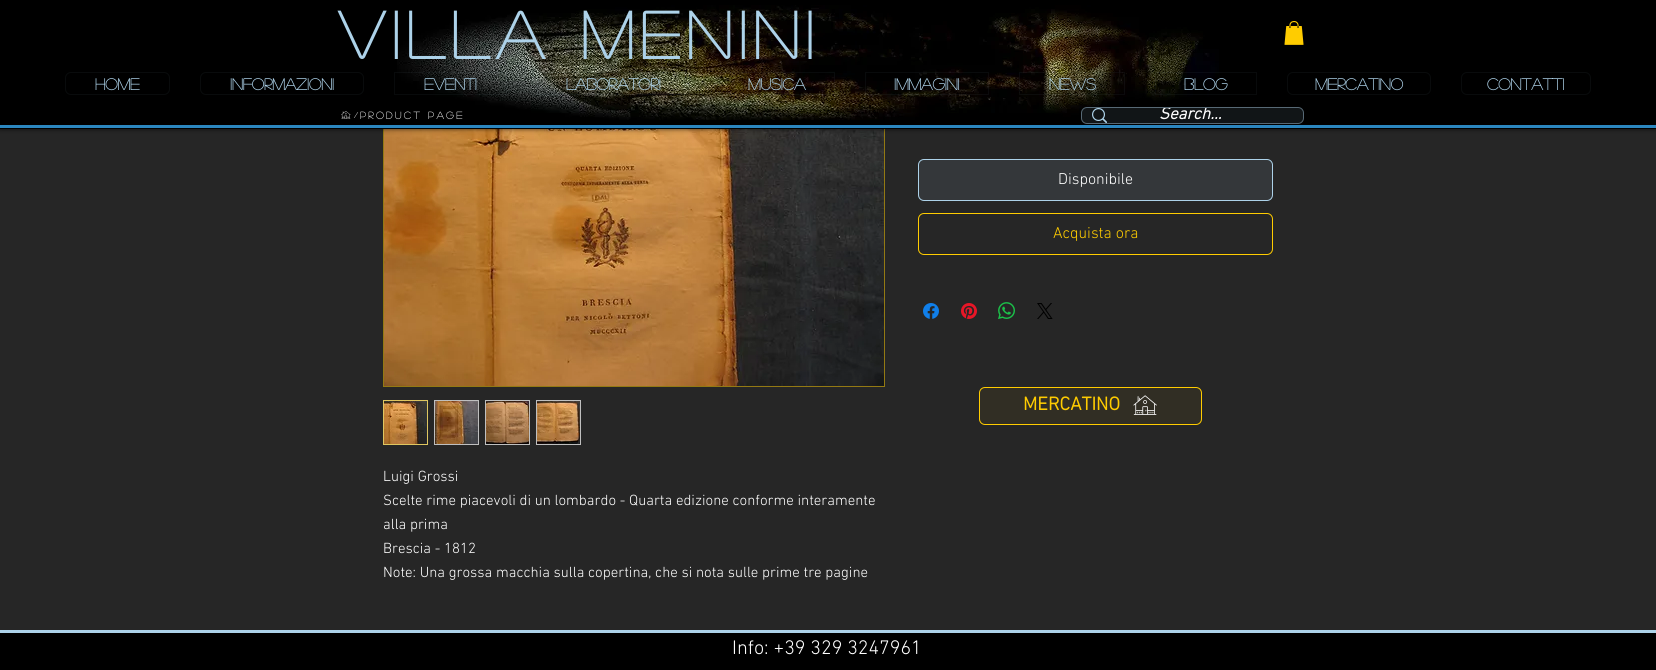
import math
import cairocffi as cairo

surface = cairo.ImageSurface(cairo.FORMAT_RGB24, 1656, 670)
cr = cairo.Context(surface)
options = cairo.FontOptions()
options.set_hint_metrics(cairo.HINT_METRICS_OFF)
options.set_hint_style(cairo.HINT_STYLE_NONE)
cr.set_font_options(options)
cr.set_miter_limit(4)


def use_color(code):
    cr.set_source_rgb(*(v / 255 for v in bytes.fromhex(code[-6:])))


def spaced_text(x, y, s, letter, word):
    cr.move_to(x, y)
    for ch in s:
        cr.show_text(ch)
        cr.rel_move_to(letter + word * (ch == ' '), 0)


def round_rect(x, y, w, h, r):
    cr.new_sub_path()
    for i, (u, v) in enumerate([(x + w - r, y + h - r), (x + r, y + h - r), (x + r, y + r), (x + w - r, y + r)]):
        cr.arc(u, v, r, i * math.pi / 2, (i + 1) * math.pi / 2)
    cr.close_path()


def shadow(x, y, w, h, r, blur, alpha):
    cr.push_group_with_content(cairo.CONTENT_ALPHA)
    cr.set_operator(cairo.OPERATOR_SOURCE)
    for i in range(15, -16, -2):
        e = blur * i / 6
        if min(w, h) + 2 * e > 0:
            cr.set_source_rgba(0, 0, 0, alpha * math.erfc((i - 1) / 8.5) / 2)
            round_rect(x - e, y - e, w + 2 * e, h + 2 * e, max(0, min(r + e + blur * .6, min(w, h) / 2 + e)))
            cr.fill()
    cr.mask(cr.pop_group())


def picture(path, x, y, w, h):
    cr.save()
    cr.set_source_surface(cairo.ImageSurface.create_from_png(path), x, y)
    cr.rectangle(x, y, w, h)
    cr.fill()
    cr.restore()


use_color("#262626")
cr.paint()
cr.rectangle(383.5, 10.5, 501, 376)
use_color("#937913")
cr.set_line_width(1)
cr.stroke()
picture("img9.png", 384, 129, 500, 257)
use_color("#000000")
shadow(0, 0, 1656, 129, 0, 2.5, 0.7)
use_color("#000000")
cr.rectangle(0, 0, 1656, 129)
cr.fill()
picture("img1.png", 397, 5, 822, 115)
cr.select_font_face("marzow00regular", cairo.FONT_SLANT_NORMAL, cairo.FONT_WEIGHT_BOLD)
cr.set_font_size(66)
use_color("#add2e9")
spaced_text(338, 59, "ViLLA MENINI", 7.25, 0)
picture("img2.png", 1284, 21, 20, 24)
round_rect(65.5, 72.5, 104, 22, 5.5)
use_color("#090b0c")
cr.stroke()
cr.set_font_size(16)
use_color("#add2e9")
cr.move_to(95, 90)
cr.show_text("HOME")
round_rect(200.5, 72.5, 163, 22, 5.5)
use_color("#090b0c")
cr.stroke()
use_color("#add2e9")
cr.move_to(230, 90)
cr.show_text("INFORMAZIONI")
cr.rectangle(394.5, 72.5, 112, 22)
cr.set_source_rgba(0.678, 0.824, 0.914, 0.05)
cr.stroke()
use_color("#add2e9")
cr.move_to(424, 90)
cr.show_text("EVENTI")
cr.rectangle(537.5, 72.5, 151, 22)
cr.set_source_rgba(0.678, 0.824, 0.914, 0.05)
cr.stroke()
use_color("#add2e9")
cr.move_to(566, 90)
cr.show_text("LABORATORI")
cr.rectangle(719.5, 72.5, 115, 22)
cr.set_source_rgba(0.678, 0.824, 0.914, 0.05)
cr.stroke()
use_color("#add2e9")
cr.move_to(748, 90)
cr.show_text("MUSICA")
cr.rectangle(865.5, 72.5, 123, 22)
cr.set_source_rgba(0.678, 0.824, 0.914, 0.05)
cr.stroke()
use_color("#add2e9")
cr.move_to(894, 90)
cr.show_text("IMMAGINI")
cr.rectangle(1019.5, 72.5, 105, 22)
cr.set_source_rgba(0.678, 0.824, 0.914, 0.05)
cr.stroke()
use_color("#add2e9")
cr.move_to(1049, 90)
cr.show_text("NEWS")
cr.rectangle(1155.5, 72.5, 101, 22)
cr.set_source_rgba(0.678, 0.824, 0.914, 0.05)
cr.stroke()
use_color("#add2e9")
cr.move_to(1184, 90)
cr.show_text("BLOG")
round_rect(1287.5, 72.5, 143, 22, 5.5)
use_color("#090b0c")
cr.stroke()
use_color("#add2e9")
cr.move_to(1315, 90)
cr.show_text("MERCATINO")
round_rect(1461.5, 72.5, 129, 22, 5.5)
use_color("#090b0c")
cr.stroke()
use_color("#add2e9")
cr.move_to(1487, 90)
cr.show_text("CONTATTI")
picture("img3.png", 341, 111, 10, 8)
cr.set_font_size(8)
use_color("#ffffff")
spaced_text(354, 118, "/", -1, 0)
cr.set_font_size(10)
spaced_text(360, 119, "Product Page", 2.5, 0)
round_rect(1081.5, 107.5, 222, 16, 5.5)
use_color("#576975")
cr.stroke()
cr.set_source_rgba(0.678, 0.824, 0.914, 0.1)
round_rect(1082, 108, 221, 15, 5)
cr.fill()
picture("img4.png", 1092, 108, 15, 15)
cr.save()
round_rect(1082, 108, 221, 15, 5)
cr.clip()
cr.select_font_face("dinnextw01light", cairo.FONT_SLANT_ITALIC, cairo.FONT_WEIGHT_BOLD)
cr.set_font_size(17)
use_color("#ffffff")
cr.move_to(1159, 119)
cr.show_text("Search...")
cr.restore()
use_color("#2b86bf")
cr.rectangle(0, 125, 1656, 3)
cr.fill()
use_color("#34373a")
round_rect(918.5, 159.5, 354, 41, 5.5)
cr.fill_preserve()
use_color("#add2e9")
cr.stroke()
cr.select_font_face("dinnextw01light Light")
cr.set_font_size(16)
use_color("#ffffff")
cr.move_to(1058, 184)
cr.show_text("Disponibile")
round_rect(918.5, 213.5, 354, 41, 5.5)
use_color("#ffcc00")
cr.stroke()
cr.move_to(1053, 238)
cr.show_text("Acquista ora")
picture("img5.png", 923, 303, 16, 16)
picture("img6.png", 961, 303, 16, 16)
picture("img7.png", 998, 302, 17, 17)
picture("img8.png", 1037, 303, 16, 16)
cr.rectangle(383.5, 400.5, 44, 44)
use_color("#dfc660")
cr.stroke()
picture("img10.png", 384, 401, 43, 43)
use_color("#bfbfbf")
cr.rectangle(434, 400, 45, 45)
cr.fill()
picture("img11.png", 435, 401, 43, 43)
cr.rectangle(485, 400, 45, 45)
cr.fill()
picture("img12.png", 486, 401, 43, 43)
cr.rectangle(536, 400, 45, 45)
cr.fill()
picture("img13.png", 537, 401, 43, 43)
cr.set_font_size(15)
use_color("#ffffff")
cr.move_to(383, 481)
cr.show_text("Luigi Grossi")
cr.move_to(383, 505)
cr.show_text("Scelte rime piacevoli di un lombardo - Quarta edizione conforme interamente")
cr.move_to(383, 529)
cr.show_text("alla prima")
cr.move_to(383, 553)
cr.show_text("Brescia - 1812")
cr.move_to(383, 577)
cr.show_text("Note: Una grossa macchia sulla copertina, che si nota sulle prime tre pagine")
use_color("#312e24")
round_rect(979.5, 387.5, 222, 37, 5.5)
cr.fill_preserve()
use_color("#ffcc00")
cr.stroke()
cr.select_font_face("dinnextw01light", cairo.FONT_SLANT_NORMAL, cairo.FONT_WEIGHT_BOLD)
cr.set_font_size(19)
cr.move_to(1023, 410)
cr.show_text("MERCATINO")
picture("img14.png", 1133, 395, 24, 20)
use_color("#000000")
cr.rectangle(0, 633, 1656, 37)
cr.fill()
use_color("#add2e9")
cr.rectangle(0, 630, 1656, 3)
cr.fill()
cr.select_font_face("dinnextw01light Light")
cr.set_font_size(20)
use_color("#ffffff")
cr.move_to(732, 654)
cr.show_text("Info: +39 329 3247961")
surface.write_to_png("result.png")
